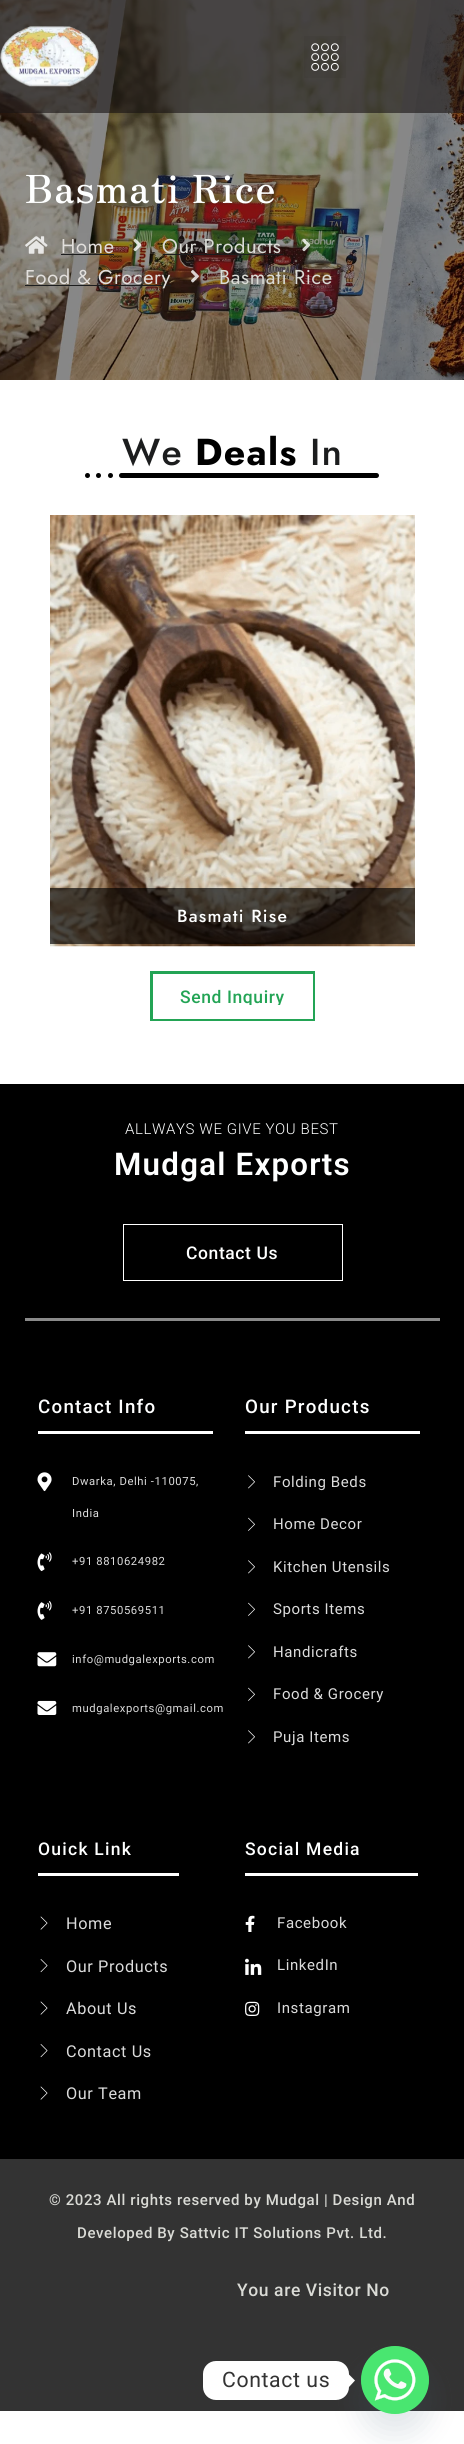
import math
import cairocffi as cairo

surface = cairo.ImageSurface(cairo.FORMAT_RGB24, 464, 2444)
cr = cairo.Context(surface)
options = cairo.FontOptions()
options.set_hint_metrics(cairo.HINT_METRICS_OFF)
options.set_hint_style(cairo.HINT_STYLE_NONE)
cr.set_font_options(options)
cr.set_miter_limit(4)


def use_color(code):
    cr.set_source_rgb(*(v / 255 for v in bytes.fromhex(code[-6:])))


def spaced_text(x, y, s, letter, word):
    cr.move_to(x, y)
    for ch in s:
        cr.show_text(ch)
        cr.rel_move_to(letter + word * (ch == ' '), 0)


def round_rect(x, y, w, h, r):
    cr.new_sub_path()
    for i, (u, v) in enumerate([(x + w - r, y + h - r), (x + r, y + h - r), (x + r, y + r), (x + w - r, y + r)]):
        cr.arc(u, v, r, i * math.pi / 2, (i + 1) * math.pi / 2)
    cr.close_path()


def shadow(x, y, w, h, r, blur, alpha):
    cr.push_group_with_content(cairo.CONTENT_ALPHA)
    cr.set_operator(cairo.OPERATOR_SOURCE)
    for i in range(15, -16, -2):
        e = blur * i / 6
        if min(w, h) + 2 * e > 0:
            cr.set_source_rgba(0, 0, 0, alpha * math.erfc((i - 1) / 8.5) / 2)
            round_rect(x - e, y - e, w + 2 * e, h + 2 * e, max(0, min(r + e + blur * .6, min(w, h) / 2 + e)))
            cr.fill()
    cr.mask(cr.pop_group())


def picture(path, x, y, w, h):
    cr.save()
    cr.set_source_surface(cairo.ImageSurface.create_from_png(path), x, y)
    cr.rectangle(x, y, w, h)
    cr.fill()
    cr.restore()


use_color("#ffffff")
cr.paint()
picture("img3.png", 0, 0, 464, 380)
cr.set_source_rgba(0.09, 0.071, 0.071, 0.61)
cr.rectangle(0, 0, 464, 113)
cr.fill()
picture("img1.png", 0, 26, 99, 61)
cr.set_source_rgba(0, 0, 0, 0.05)
cr.rectangle(304, 36, 42, 42)
cr.fill()
picture("img2.png", 311, 43, 28, 28)
cr.select_font_face("Zen Old Mincho", cairo.FONT_SLANT_NORMAL, cairo.FONT_WEIGHT_BOLD)
cr.set_font_size(38.75)
use_color("#feffff")
spaced_text(25, 203, "Basmati Rice", 1.25, 0)
picture("img4.png", 25, 236, 23, 18)
cr.select_font_face("Jost")
cr.set_font_size(20)
use_color("#e2dfdc")
spaced_text(61, 253, "Home", 0.6, 0)
use_color("#1c1d1e")
cr.rectangle(61, 254, 53, 1)
cr.fill()
picture("img5.png", 133, 238, 9, 14)
use_color("#dadbd6")
spaced_text(162, 253, "Our Products", 0.6, 0)
use_color("#1c1d1e")
cr.rectangle(163, 254, 120, 1)
cr.fill()
picture("img6.png", 302, 238, 9, 14)
cr.rectangle(25, 285, 146, 1)
cr.fill()
use_color("#e2dfdc")
spaced_text(25, 284, "Food & Grocery", 0.6, 0)
picture("img7.png", 191, 270, 8, 13)
use_color("#dadbd6")
spaced_text(219, 284, "Basmati Rice", 0.6, 0)
cr.select_font_face("Jost Medium")
cr.set_font_size(37.5)
use_color("#1c1d1e")
spaced_text(122, 465, "We", 1.25, 0)
cr.select_font_face("Jost", cairo.FONT_SLANT_NORMAL, cairo.FONT_WEIGHT_BOLD)
use_color("#000000")
spaced_text(195, 465, "Deals", 1.25, 0)
cr.select_font_face("Jost Medium")
use_color("#1c1d1e")
spaced_text(310, 465, "In", 1.25, 0)
use_color("#000000")
round_rect(119, 473, 260, 5, 2.5)
cr.fill()
cr.arc(110.5, 475.5, 2.5, 0, 2 * math.pi)
cr.fill()
cr.arc(98.5, 475.5, 2.5, 0, 2 * math.pi)
cr.fill()
cr.arc(87.5, 475.5, 2.5, 0, 2 * math.pi)
cr.fill()
picture("img8.png", 50, 515, 365, 432)
cr.set_source_rgba(0, 0, 0, 0.66)
cr.rectangle(50, 888, 365, 56)
cr.fill()
cr.set_font_size(17.5)
use_color("#feffff")
spaced_text(177, 922, "Basmati Rise", 1.25, 0)
use_color("#23a455")
cr.rectangle(150, 971, 165, 50)
cr.fill()
use_color("#ffffff")
cr.rectangle(153, 974, 160, 45)
cr.fill()
cr.save()
cr.rectangle(180, 988, 105, 17)
cr.clip()
cr.select_font_face("Roboto Medium")
use_color("#23a455")
spaced_text(180, 1003, "Send Inquiry", 0.6, 0)
cr.restore()
use_color("#000000")
cr.rectangle(0, 1084, 464, 1075)
cr.fill()
cr.select_font_face("Roboto Light")
cr.set_font_size(15)
use_color("#feffff")
spaced_text(125, 1134, "ALLWAYS WE GIVE YOU BEST", 0.6, 0)
cr.select_font_face("Roboto SemiBold")
cr.set_font_size(31.25)
spaced_text(114, 1175, "Mudgal Exports", 1.25, 0)
cr.rectangle(123.5, 1224.5, 219, 56)
use_color("#ffffff")
cr.set_line_width(1)
cr.stroke()
cr.select_font_face("Roboto Medium")
cr.set_font_size(17.5)
use_color("#feffff")
spaced_text(186, 1259, "Contact Us", 0.6, 0)
use_color("#8a8a8a")
cr.rectangle(25, 1318, 415, 3)
cr.fill()
cr.set_font_size(18.75)
use_color("#feffff")
spaced_text(38, 1413, "Contact Info", 1.25, 0)
use_color("#ffffff")
cr.rectangle(38, 1431, 175, 3)
cr.fill()
picture("img9.png", 37, 1472, 15, 20)
cr.select_font_face("Roboto")
cr.set_font_size(11.25)
use_color("#dcdcdc")
spaced_text(72, 1485, "Dwarka, Delhi -110075,", 0.6, 0)
spaced_text(72, 1517, "India", 0.6, 0)
picture("img10.png", 37, 1552, 15, 20)
spaced_text(72, 1565, "+91 8810624982", 0.6, 0)
picture("img11.png", 37, 1601, 15, 19)
spaced_text(72, 1614, "+91 8750569511", 0.6, 0)
picture("img12.png", 37, 1652, 20, 15)
spaced_text(72, 1663, "info@mudgalexports.com", 0.6, 0)
picture("img13.png", 37, 1700, 20, 15)
spaced_text(72, 1712, "mudgalexports@gmail.com", 0.6, 0)
cr.select_font_face("Roboto Medium")
cr.set_font_size(18.75)
use_color("#feffff")
spaced_text(245, 1413, "Our Products", 1.25, 0)
use_color("#ffffff")
cr.rectangle(245, 1431, 175, 3)
cr.fill()
picture("img14.png", 248, 1475, 7, 14)
cr.select_font_face("Roboto")
cr.set_font_size(15)
use_color("#dcdcdc")
spaced_text(273, 1487, "Folding Beds", 0.6, 0)
picture("img15.png", 248, 1517, 7, 14)
spaced_text(273, 1529, "Home Decor", 0.6, 0)
picture("img14.png", 248, 1560, 7, 14)
spaced_text(273, 1572, "Kitchen Utensils", 0.6, 0)
picture("img15.png", 248, 1602, 7, 14)
spaced_text(273, 1614, "Sports Items", 0.6, 0)
picture("img14.png", 248, 1645, 7, 14)
spaced_text(273, 1657, "Handicrafts", 0.6, 0)
picture("img15.png", 248, 1687, 7, 14)
spaced_text(273, 1699, "Food & Grocery", 0.6, 0)
picture("img14.png", 248, 1730, 7, 14)
spaced_text(273, 1742, "Puja Items", 0.6, 0)
cr.select_font_face("Roboto Medium")
cr.set_font_size(17.5)
use_color("#feffff")
spaced_text(38, 1855, "Ouick Link", 1.25, 0)
use_color("#ffffff")
cr.rectangle(38, 1873, 141, 3)
cr.fill()
picture("img16.png", 40, 1916, 8, 14)
cr.select_font_face("Roboto")
cr.set_font_size(16.25)
use_color("#dcdcdc")
spaced_text(66, 1929, "Home", 0.6, 0)
picture("img17.png", 40, 1959, 8, 14)
spaced_text(66, 1972, "Our Products", 0.6, 0)
picture("img16.png", 40, 2001, 8, 14)
spaced_text(66, 2014, "About Us", 0.6, 0)
picture("img17.png", 40, 2044, 8, 14)
spaced_text(66, 2057, "Contact Us", 0.6, 0)
picture("img16.png", 40, 2086, 8, 14)
spaced_text(66, 2099, "Our Team", 0.6, 0)
cr.select_font_face("Roboto Medium")
cr.set_font_size(17.5)
use_color("#feffff")
spaced_text(245, 1855, "Social Media", 1.25, 0)
use_color("#ffffff")
cr.rectangle(245, 1873, 173, 3)
cr.fill()
picture("img18.png", 245, 1915, 10, 17)
cr.select_font_face("Roboto")
cr.set_font_size(15)
use_color("#dcdcdc")
spaced_text(277, 1928, "Facebook", 0.6, 0)
picture("img19.png", 245, 1958, 17, 17)
spaced_text(277, 1970, "LinkedIn", 0.6, 0)
picture("img20.png", 245, 2001, 15, 15)
spaced_text(277, 2013, "Instagram", 0.6, 0)
use_color("#333333")
cr.rectangle(0, 2159, 464, 252)
cr.fill()
cr.select_font_face("Roboto Medium")
use_color("#dadbd6")
spaced_text(49, 2205, "© 2023 All rights reserved by Mudgal | Design And", 0.6, 0)
spaced_text(77, 2238, "Developed By Sattvic IT Solutions Pvt. Ltd.", 0.6, 0)
cr.set_font_size(17.5)
spaced_text(237, 2296, "You are Visitor No", 0.6, 0)
use_color("#49687e")
shadow(361, 2366, 68, 68, 34, 15, 0.16)
use_color("#ffffff")
round_rect(203, 2361, 146, 39, 13)
cr.fill()
cr.select_font_face("Roboto")
cr.set_font_size(21.25)
use_color("#333333")
spaced_text(222, 2387, "Contact us", 0.6, 0)
use_color("#ffffff")
cr.new_path()
cr.move_to(349, 2387)
cr.line_to(349, 2374.5)
cr.line_to(355, 2380.5)
cr.close_path()
cr.fill()
use_color("#49e670")
cr.arc(395, 2380, 34, 0, 2 * math.pi)
cr.fill()
picture("img21.png", 361, 2346, 68, 68)
surface.write_to_png("result.png")
